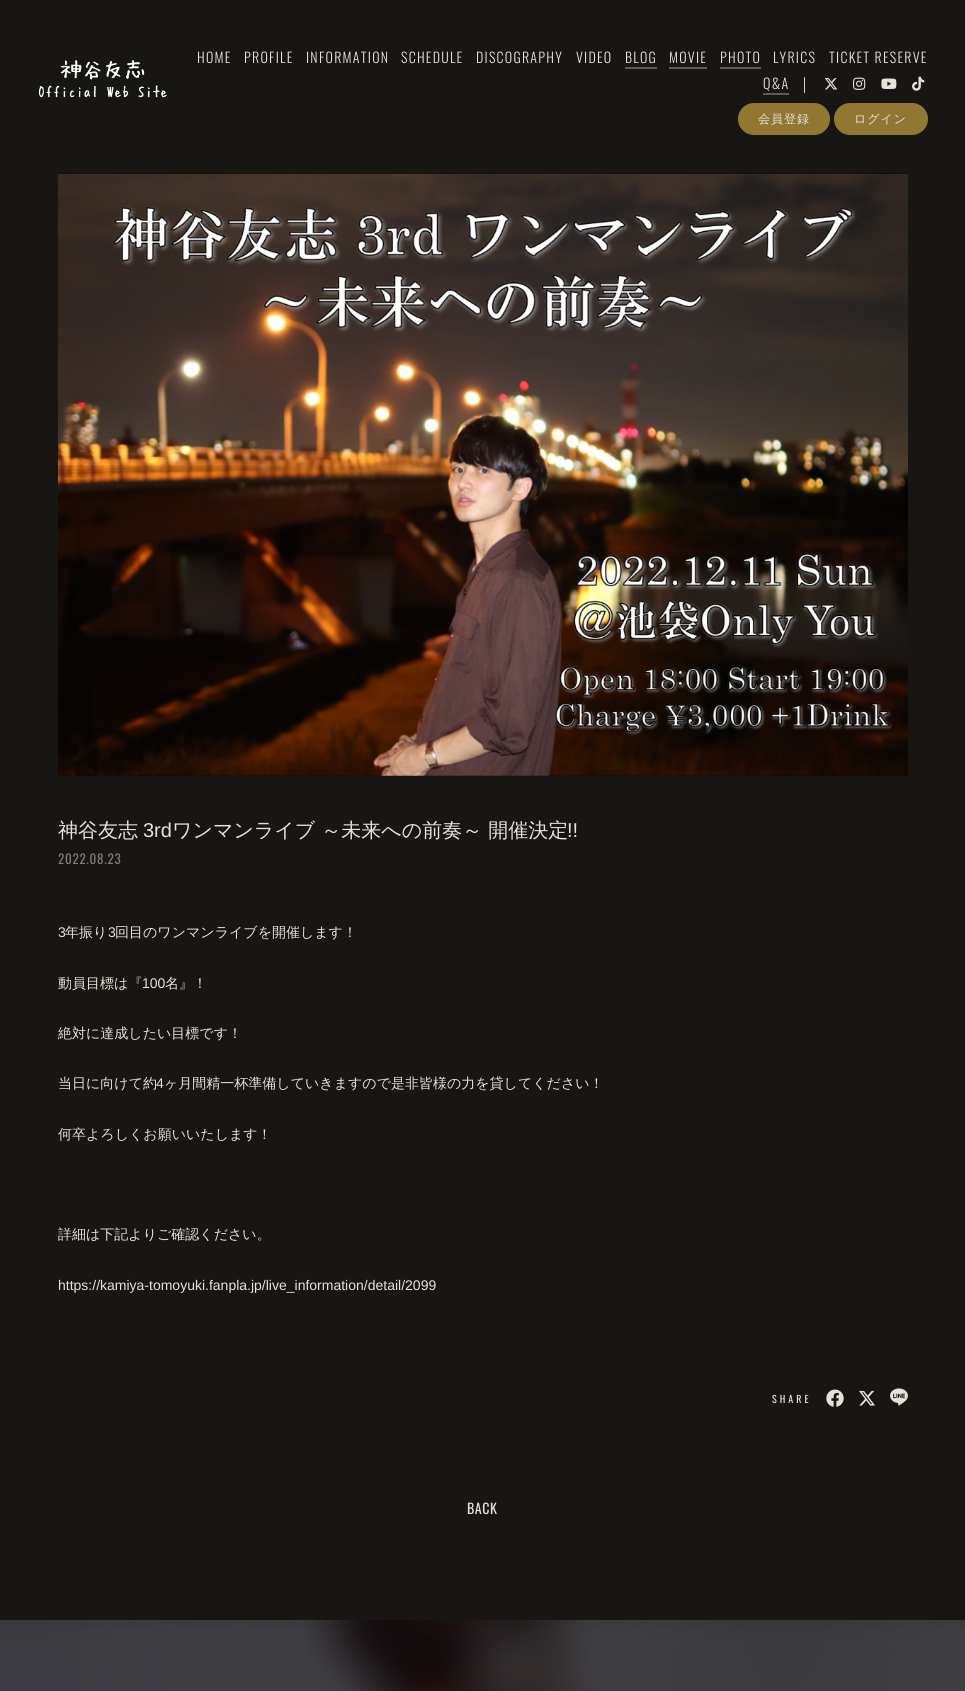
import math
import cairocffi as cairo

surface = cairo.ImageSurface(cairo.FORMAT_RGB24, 965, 1691)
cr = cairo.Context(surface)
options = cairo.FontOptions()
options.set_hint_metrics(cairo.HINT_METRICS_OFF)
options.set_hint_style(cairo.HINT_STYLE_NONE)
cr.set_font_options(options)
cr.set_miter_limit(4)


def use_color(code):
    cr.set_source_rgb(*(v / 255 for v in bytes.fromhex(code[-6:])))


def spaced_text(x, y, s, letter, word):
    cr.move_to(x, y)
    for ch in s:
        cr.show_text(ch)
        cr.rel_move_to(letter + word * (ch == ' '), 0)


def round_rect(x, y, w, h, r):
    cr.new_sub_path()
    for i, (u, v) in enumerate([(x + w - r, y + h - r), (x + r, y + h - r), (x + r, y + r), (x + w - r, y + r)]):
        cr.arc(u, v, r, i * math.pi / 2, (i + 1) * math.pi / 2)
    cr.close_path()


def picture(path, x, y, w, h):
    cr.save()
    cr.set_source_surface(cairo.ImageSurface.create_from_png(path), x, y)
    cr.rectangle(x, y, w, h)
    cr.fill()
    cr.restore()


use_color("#171613")
cr.paint()
picture("img1.png", 38, 60, 129, 38)
cr.select_font_face("Oswald Light")
cr.set_font_size(14)
use_color("#e4e3d9")
spaced_text(197, 63, "HOME", 1.25, 0)
spaced_text(244, 63, "PROFILE", 1.25, 0)
spaced_text(306, 63, "INFORMATION", 1.25, 0)
spaced_text(401, 63, "SCHEDULE", 1.25, 0)
spaced_text(476, 63, "DISCOGRAPHY", 1.25, 0)
spaced_text(576, 63, "VIDEO", 1.25, 0)
spaced_text(625, 63, "BLOG", 1.25, 0)
use_color("#5d5c5a")
cr.rectangle(625, 67, 32, 2)
cr.fill()
use_color("#e4e3d9")
spaced_text(669, 63, "MOVIE", 1.25, 0)
use_color("#5d5c5a")
cr.rectangle(669, 67, 38, 2)
cr.fill()
use_color("#e4e3d9")
spaced_text(720, 63, "PHOTO", 1.25, 0)
use_color("#5d5c5a")
cr.rectangle(720, 67, 41, 2)
cr.fill()
use_color("#e4e3d9")
spaced_text(773, 63, "LYRICS", 1.25, 0)
spaced_text(829, 63, "TICKET RESERVE", 1.25, 0)
spaced_text(763, 89, "Q&A", 1.25, 0)
use_color("#5d5c5a")
cr.rectangle(763, 93, 26, 2)
cr.fill()
cr.select_font_face("Liberation Sans")
cr.set_font_size(13)
use_color("#e4e3d9")
spaced_text(801, 89, "│", 1, 0)
picture("img2.png", 824, 78, 14, 12)
picture("img3.png", 853, 77, 13, 13)
picture("img4.png", 881, 78, 16, 11)
picture("img5.png", 912, 76, 13, 15)
use_color("#907831")
round_rect(738, 103, 92, 32, 16)
cr.fill()
cr.select_font_face("WenQuanYi Zen Hei Medium")
cr.set_font_size(12)
use_color("#e4e3d9")
spaced_text(758, 123, "会員登録", 1, 0)
use_color("#907831")
round_rect(834, 103, 94, 32, 16)
cr.fill()
use_color("#e4e3d9")
spaced_text(854, 123, "ログイン", 1, 0)
picture("img6.png", 58, 173, 850, 603)
cr.set_font_size(20)
cr.move_to(58, 837)
cr.show_text("神谷友志")
cr.select_font_face("Liberation Sans")
cr.move_to(143, 837)
cr.show_text("3rd")
cr.select_font_face("WenQuanYi Zen Hei Medium")
cr.move_to(172, 837)
cr.show_text("ワンマンライブ ～未来への前奏～ 開催決定")
cr.select_font_face("Liberation Sans")
cr.move_to(567, 837)
cr.show_text("!!")
cr.select_font_face("Oswald")
cr.set_font_size(13)
use_color("#7e7d76")
spaced_text(58, 864, "2022.08.23", 0.75, 0)
cr.select_font_face("Liberation Sans")
cr.set_font_size(14)
use_color("#e4e3d9")
cr.move_to(58, 937)
cr.show_text("3")
cr.select_font_face("WenQuanYi Zen Hei Medium")
cr.move_to(65, 937)
cr.show_text("年振り")
cr.select_font_face("Liberation Sans")
cr.move_to(108, 937)
cr.show_text("3")
cr.select_font_face("WenQuanYi Zen Hei Medium")
cr.move_to(115, 937)
cr.show_text("回目のワンマンライブを開催します！")
cr.move_to(58, 988)
cr.show_text("動員目標は『")
cr.select_font_face("Liberation Sans")
cr.move_to(142, 988)
cr.show_text("100")
cr.select_font_face("WenQuanYi Zen Hei Medium")
cr.move_to(165, 988)
cr.show_text("名』！")
cr.move_to(58, 1038)
cr.show_text("絶対に達成したい目標です！")
cr.move_to(58, 1088)
cr.show_text("当日に向けて約")
cr.select_font_face("Liberation Sans")
cr.move_to(156, 1088)
cr.show_text("4")
cr.select_font_face("WenQuanYi Zen Hei Medium")
cr.move_to(164, 1088)
cr.show_text("ヶ月間精一杯準備していきますので是非皆様の力を貸してください！")
cr.move_to(58, 1139)
cr.show_text("何卒よろしくお願いいたします！")
cr.move_to(58, 1239)
cr.show_text("詳細は下記よりご確認ください。")
cr.select_font_face("Liberation Sans")
cr.move_to(58, 1290)
cr.show_text("https://kamiya-tomoyuki.fanpla.jp/live_information/detail/2099")
cr.select_font_face("Oswald")
cr.set_font_size(10)
spaced_text(772, 1403, "SHARE", 3, 0)
picture("img7.png", 826, 1389, 18, 18)
picture("img8.png", 859, 1390, 16, 16)
picture("img9.png", 890, 1388, 18, 18)
cr.set_font_size(14)
spaced_text(467, 1514, "BACK", 0.5, 0)
picture("img10.png", 0, 1620, 965, 71)
surface.write_to_png("result.png")
